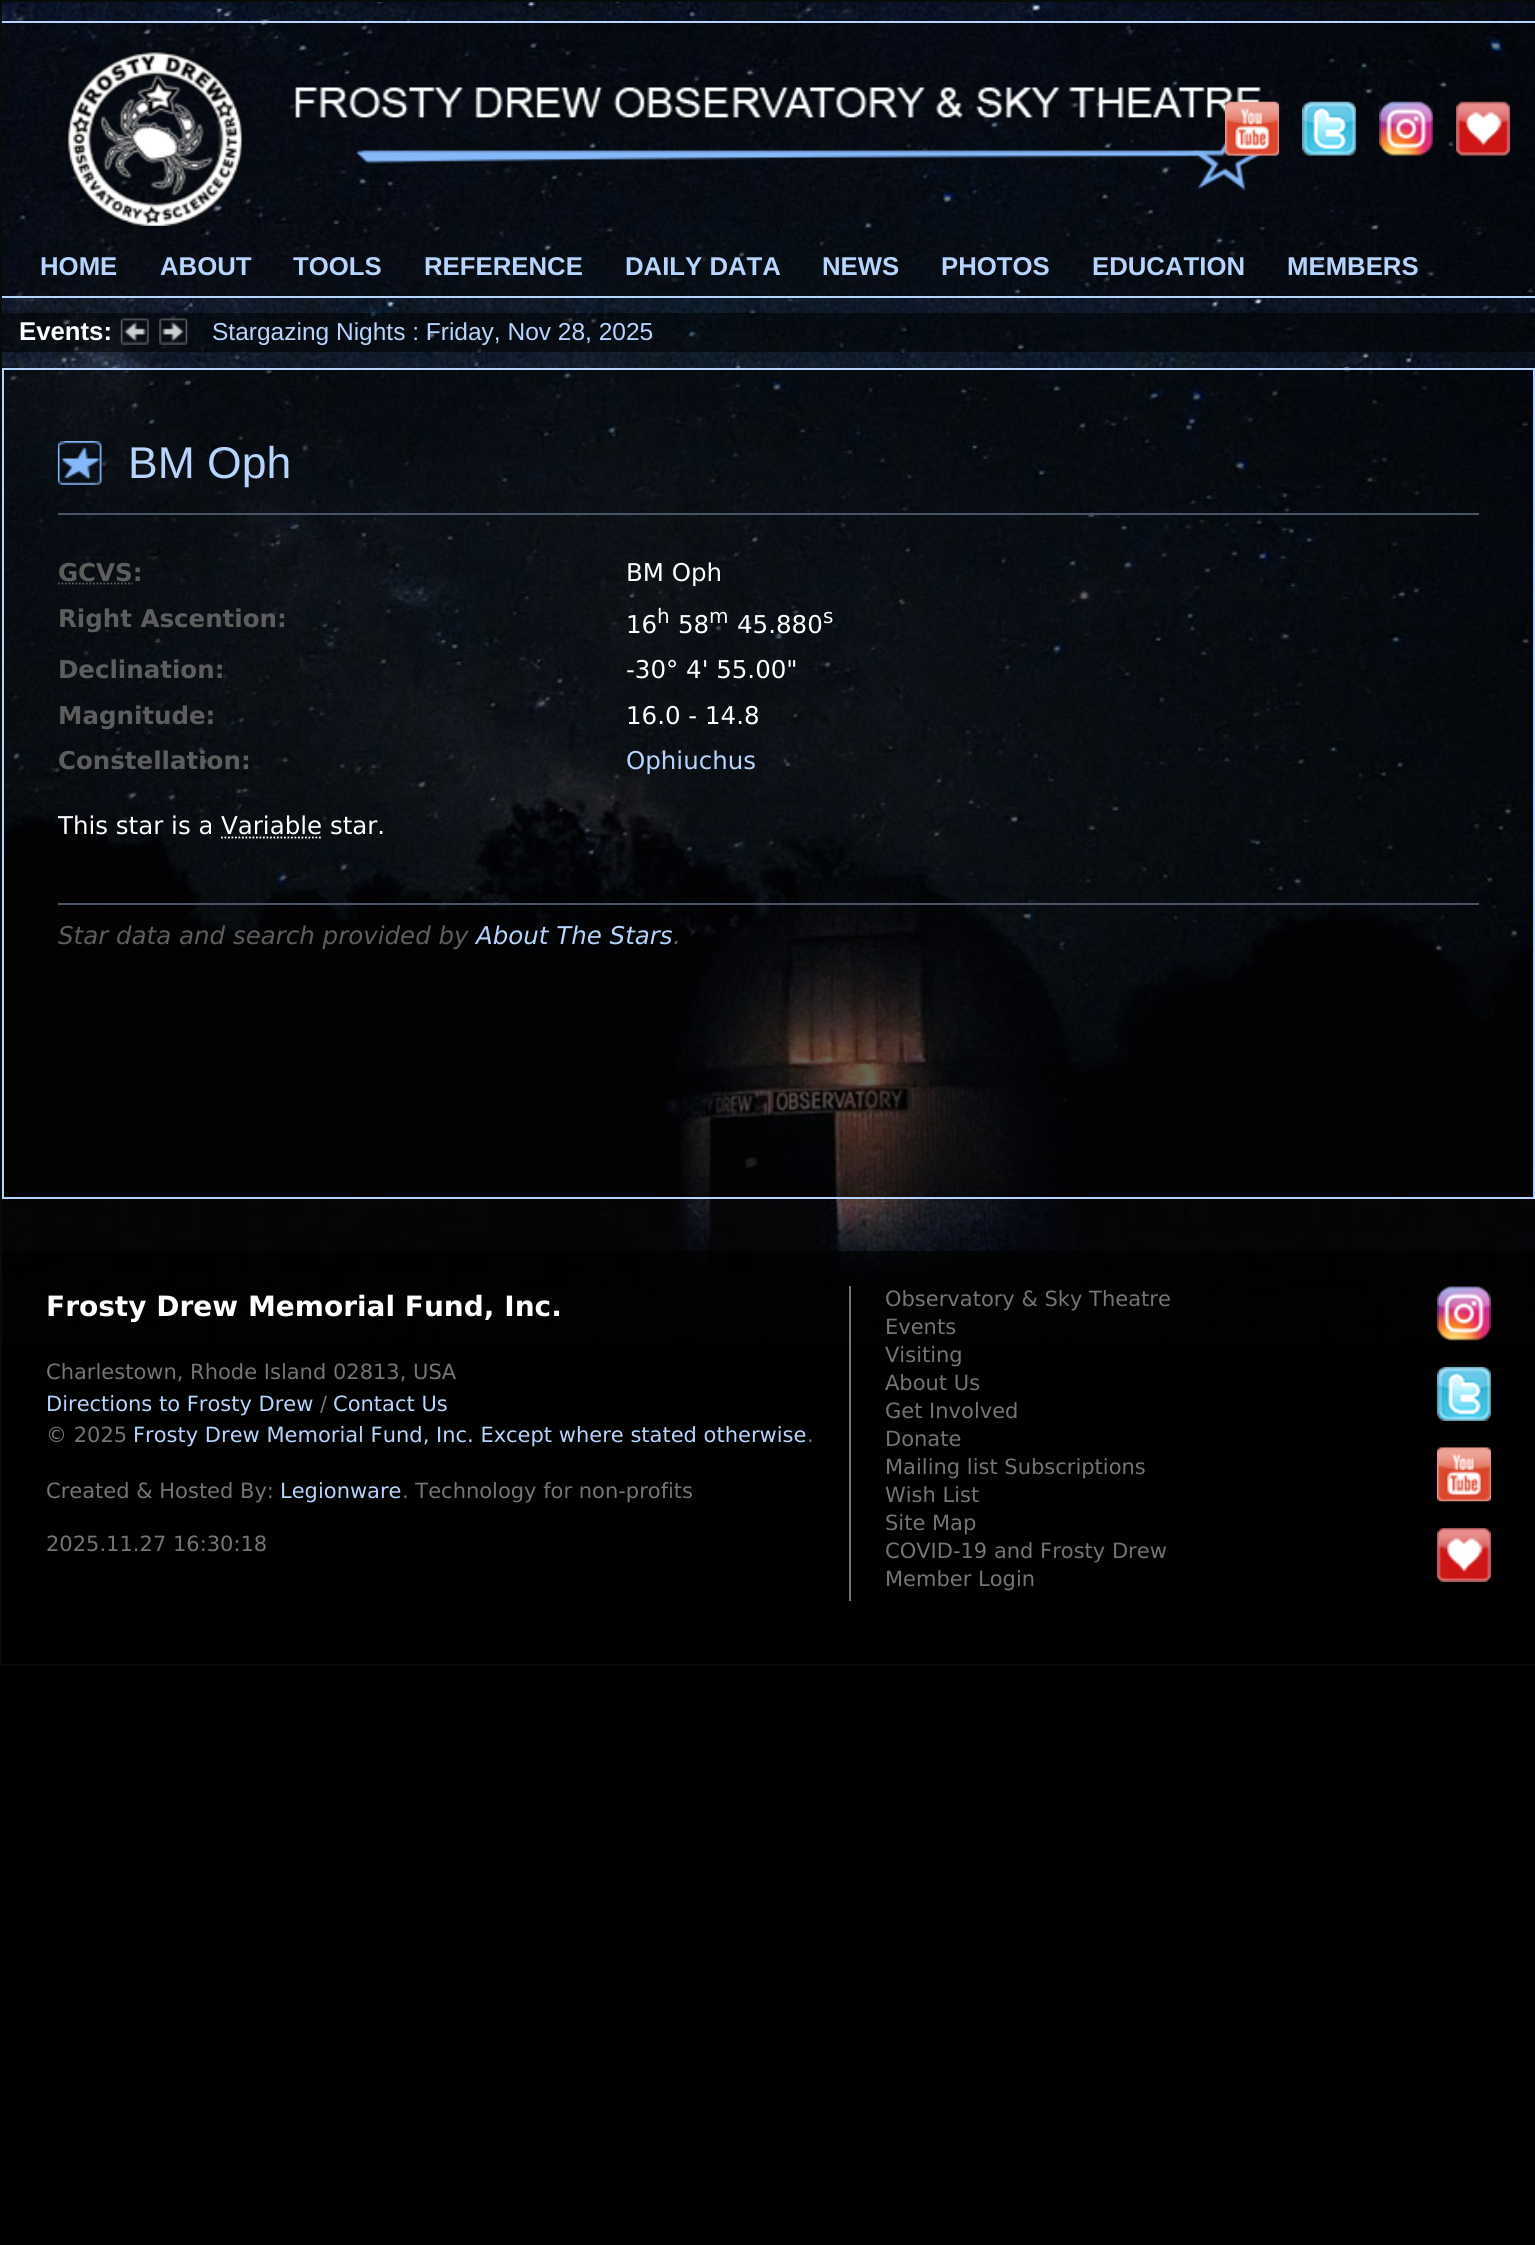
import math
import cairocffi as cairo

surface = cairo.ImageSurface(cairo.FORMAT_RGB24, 1535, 2245)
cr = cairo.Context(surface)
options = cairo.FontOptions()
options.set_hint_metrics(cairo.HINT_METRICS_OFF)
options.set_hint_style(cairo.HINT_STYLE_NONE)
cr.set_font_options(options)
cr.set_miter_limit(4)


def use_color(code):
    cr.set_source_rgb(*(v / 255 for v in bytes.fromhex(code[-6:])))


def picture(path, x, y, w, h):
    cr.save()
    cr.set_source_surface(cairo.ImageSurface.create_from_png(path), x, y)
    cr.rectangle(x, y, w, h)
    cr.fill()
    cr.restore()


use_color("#000000")
cr.paint()
picture("img1.png", 2, 2, 1533, 1342)
cr.rectangle(1, 1, 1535, 1664)
use_color("#080c08")
cr.stroke()
cr.set_source_rgba(0, 0, 0, 0.45)
cr.rectangle(2, 23, 1533, 273)
cr.fill()
use_color("#b6d4fc")
cr.rectangle(2, 21, 1533, 2)
cr.fill()
cr.rectangle(2, 296, 1533, 2)
cr.fill()
picture("img2.png", 66, 50, 1200, 176)
picture("img3.png", 1225, 101, 55, 55)
picture("img4.png", 1302, 101, 55, 55)
picture("img5.png", 1379, 101, 55, 55)
picture("img6.png", 1456, 101, 55, 55)
cr.select_font_face("Liberation Sans", cairo.FONT_SLANT_NORMAL, cairo.FONT_WEIGHT_BOLD)
cr.set_font_size(25.75)
cr.move_to(40, 275)
cr.show_text("HOME")
cr.move_to(160, 275)
cr.show_text("ABOUT")
cr.move_to(293, 275)
cr.show_text("TOOLS")
cr.move_to(424, 275)
cr.show_text("REFERENCE")
cr.move_to(625, 275)
cr.show_text("DAILY DATA")
cr.move_to(822, 275)
cr.show_text("NEWS")
cr.move_to(941, 275)
cr.show_text("PHOTOS")
cr.move_to(1092, 275)
cr.show_text("EDUCATION")
cr.move_to(1287, 275)
cr.show_text("MEMBERS")
cr.set_source_rgba(0, 0, 0, 0.55)
cr.rectangle(2, 313, 1533, 39)
cr.fill()
use_color("#ffffff")
cr.move_to(19, 340)
cr.show_text("Events:")
picture("img7.png", 120, 318, 29, 27)
picture("img8.png", 159, 318, 29, 27)
cr.select_font_face("Liberation Sans")
cr.set_font_size(24.5)
use_color("#b6d4fc")
cr.move_to(212, 340)
cr.show_text("Stargazing Nights : Friday, Nov 28, 2025")
cr.set_source_rgba(0, 0, 0, 0.6)
cr.rectangle(3, 369, 1531, 829)
cr.fill_preserve()
use_color("#b6d4fc")
cr.stroke()
picture("img9.png", 57, 441, 45, 44)
cr.set_font_size(44.5)
cr.move_to(128, 478)
cr.show_text("BM Oph")
use_color("#495565")
cr.rectangle(58, 513, 1421, 2)
cr.fill()
cr.select_font_face("DejaVu Sans", cairo.FONT_SLANT_NORMAL, cairo.FONT_WEIGHT_BOLD)
cr.set_font_size(24.5)
use_color("#5d5d5d")
cr.move_to(58, 581)
cr.show_text("GCVS:")
cr.new_path()
cr.move_to(58, 583.5)
cr.line_to(132.5, 583.5)
cr.set_line_width(1.8)
cr.set_dash([1.75, 1.75])
cr.stroke()
cr.select_font_face("DejaVu Sans")
use_color("#ffffff")
cr.move_to(626, 581)
cr.show_text("BM Oph")
cr.select_font_face("DejaVu Sans", cairo.FONT_SLANT_NORMAL, cairo.FONT_WEIGHT_BOLD)
use_color("#5d5d5d")
cr.move_to(58, 627)
cr.show_text("Right Ascention:")
cr.select_font_face("DejaVu Sans")
use_color("#ffffff")
cr.move_to(626, 633)
cr.show_text("16")
cr.set_font_size(20)
cr.move_to(657, 623)
cr.show_text("h")
cr.set_font_size(24.5)
cr.move_to(678, 633)
cr.show_text("58")
cr.set_font_size(20)
cr.move_to(709, 623)
cr.show_text("m")
cr.set_font_size(24.5)
cr.move_to(737, 633)
cr.show_text("45.880")
cr.set_font_size(20)
cr.move_to(823, 623)
cr.show_text("s")
cr.select_font_face("DejaVu Sans", cairo.FONT_SLANT_NORMAL, cairo.FONT_WEIGHT_BOLD)
cr.set_font_size(24.5)
use_color("#5d5d5d")
cr.move_to(58, 678)
cr.show_text("Declination:")
cr.select_font_face("DejaVu Sans")
use_color("#ffffff")
cr.move_to(626, 678)
cr.show_text("-30° 4' 55.00\"")
cr.select_font_face("DejaVu Sans", cairo.FONT_SLANT_NORMAL, cairo.FONT_WEIGHT_BOLD)
use_color("#5d5d5d")
cr.move_to(58, 724)
cr.show_text("Magnitude:")
cr.select_font_face("DejaVu Sans")
use_color("#ffffff")
cr.move_to(626, 724)
cr.show_text("16.0 - 14.8")
cr.select_font_face("DejaVu Sans", cairo.FONT_SLANT_NORMAL, cairo.FONT_WEIGHT_BOLD)
use_color("#5d5d5d")
cr.move_to(58, 769)
cr.show_text("Constellation:")
cr.select_font_face("DejaVu Sans")
use_color("#b6d4fc")
cr.move_to(626, 769)
cr.show_text("Ophiuchus")
cr.save()
cr.rectangle(58, 441, 1421, 427)
cr.clip()
use_color("#ffffff")
cr.move_to(58, 834)
cr.show_text("This star is a")
cr.restore()
use_color("#ffffff")
cr.move_to(221, 834)
cr.show_text("Variable star.")
cr.new_path()
cr.move_to(221, 837.5)
cr.line_to(322, 837.5)
cr.stroke()
use_color("#495565")
cr.rectangle(58, 903, 1421, 2)
cr.fill()
cr.select_font_face("DejaVu Sans", cairo.FONT_SLANT_ITALIC)
use_color("#5d5d5d")
cr.move_to(58, 944)
cr.show_text("Star data and search provided by")
use_color("#b6d4fc")
cr.move_to(476, 944)
cr.show_text("About The Stars")
use_color("#5d5d5d")
cr.move_to(673, 944)
cr.show_text(".")
cr.set_source_rgba(0, 0, 0, 0.7)
cr.rectangle(2, 1251, 1533, 93)
cr.fill()
use_color("#747475")
cr.rectangle(849, 1286, 2, 315)
cr.fill()
cr.select_font_face("DejaVu Sans", cairo.FONT_SLANT_NORMAL, cairo.FONT_WEIGHT_BOLD)
cr.set_font_size(28)
use_color("#ffffff")
cr.move_to(46, 1316)
cr.show_text("Frosty Drew Memorial Fund, Inc.")
cr.select_font_face("DejaVu Sans")
cr.set_font_size(21)
use_color("#747475")
cr.move_to(46, 1379)
cr.show_text("Charlestown, Rhode Island 02813, USA")
use_color("#b6d4fc")
cr.move_to(46, 1411)
cr.show_text("Directions to Frosty Drew")
use_color("#747475")
cr.move_to(320, 1411)
cr.show_text("/")
use_color("#b6d4fc")
cr.move_to(333, 1411)
cr.show_text("Contact Us")
use_color("#747475")
cr.move_to(46, 1442)
cr.show_text("© 2025")
use_color("#b6d4fc")
cr.move_to(133, 1442)
cr.show_text("Frosty Drew Memorial Fund, Inc. Except where stated otherwise")
use_color("#747475")
cr.move_to(807, 1442)
cr.show_text(".")
cr.move_to(46, 1498)
cr.show_text("Created & Hosted By:")
use_color("#b6d4fc")
cr.move_to(280, 1498)
cr.show_text("Legionware")
use_color("#747475")
cr.move_to(402, 1498)
cr.show_text(". Technology for non-profits")
cr.move_to(46, 1551)
cr.show_text("2025.11.27 16:30:18")
cr.move_to(885, 1306)
cr.show_text("Observatory & Sky Theatre")
cr.move_to(885, 1334)
cr.show_text("Events")
cr.move_to(885, 1362)
cr.show_text("Visiting")
cr.move_to(885, 1390)
cr.show_text("About Us")
cr.move_to(885, 1418)
cr.show_text("Get Involved")
cr.move_to(885, 1446)
cr.show_text("Donate")
cr.move_to(885, 1474)
cr.show_text("Mailing list Subscriptions")
cr.move_to(885, 1502)
cr.show_text("Wish List")
cr.move_to(885, 1530)
cr.show_text("Site Map")
cr.move_to(885, 1558)
cr.show_text("COVID-19 and Frosty Drew")
cr.move_to(885, 1586)
cr.show_text("Member Login")
picture("img10.png", 1437, 1286, 54, 55)
picture("img11.png", 1437, 1366, 54, 55)
picture("img12.png", 1437, 1447, 54, 55)
picture("img13.png", 1437, 1527, 54, 55)
surface.write_to_png("result.png")
